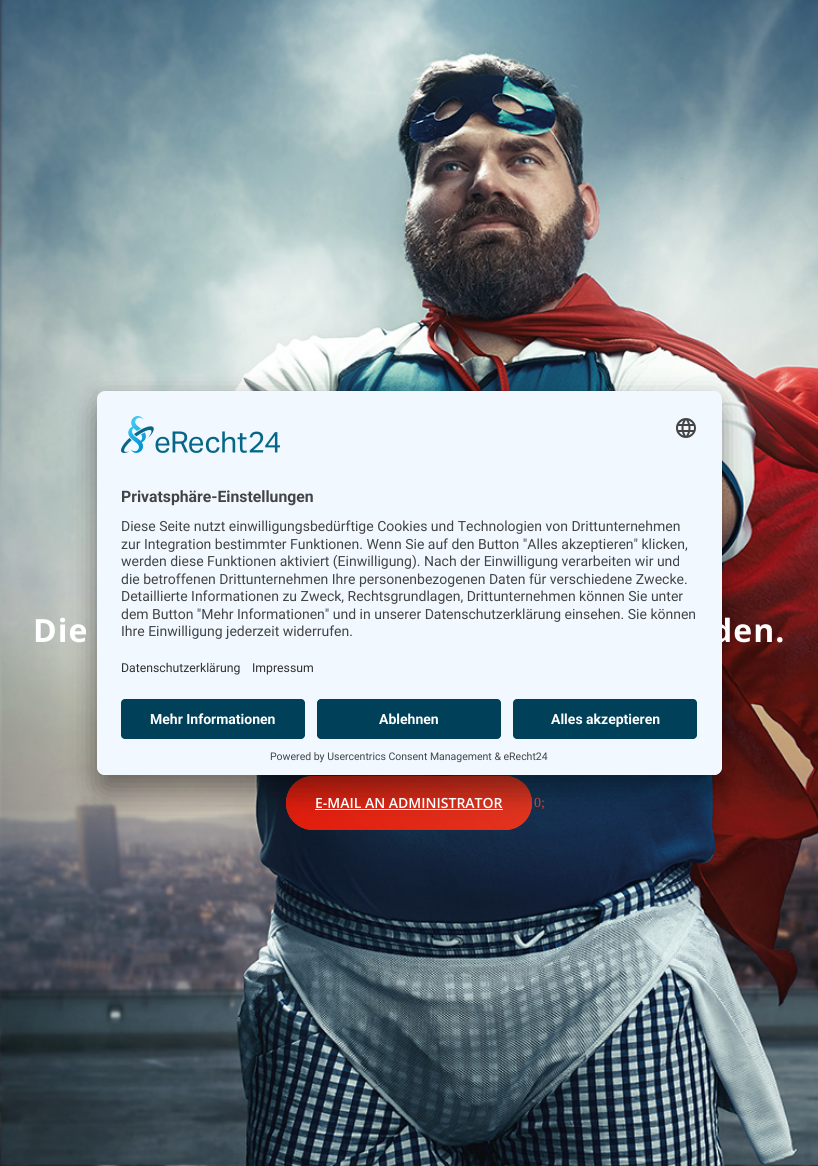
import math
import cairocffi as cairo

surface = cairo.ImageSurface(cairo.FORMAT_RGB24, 818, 1166)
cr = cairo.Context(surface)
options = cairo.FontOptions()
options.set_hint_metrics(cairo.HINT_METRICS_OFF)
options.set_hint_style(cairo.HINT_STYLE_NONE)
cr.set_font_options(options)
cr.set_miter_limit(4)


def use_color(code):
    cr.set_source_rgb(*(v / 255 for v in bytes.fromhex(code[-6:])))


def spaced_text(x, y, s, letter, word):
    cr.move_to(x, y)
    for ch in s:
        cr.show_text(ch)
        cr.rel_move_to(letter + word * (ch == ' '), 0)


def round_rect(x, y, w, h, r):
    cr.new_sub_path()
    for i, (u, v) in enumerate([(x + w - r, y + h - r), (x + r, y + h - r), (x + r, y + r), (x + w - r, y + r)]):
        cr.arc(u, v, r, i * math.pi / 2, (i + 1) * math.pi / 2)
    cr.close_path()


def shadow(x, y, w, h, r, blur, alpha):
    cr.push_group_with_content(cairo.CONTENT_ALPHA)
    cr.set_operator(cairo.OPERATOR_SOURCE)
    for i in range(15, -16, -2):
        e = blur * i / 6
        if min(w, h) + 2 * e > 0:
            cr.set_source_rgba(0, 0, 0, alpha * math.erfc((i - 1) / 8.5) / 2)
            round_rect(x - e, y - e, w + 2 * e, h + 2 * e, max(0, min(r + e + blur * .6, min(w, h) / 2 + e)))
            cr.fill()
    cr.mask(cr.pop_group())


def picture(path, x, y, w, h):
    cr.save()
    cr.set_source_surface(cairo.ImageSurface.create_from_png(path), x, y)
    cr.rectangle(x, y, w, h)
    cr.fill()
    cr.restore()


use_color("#ffffff")
cr.paint()
picture("img3.png", 0, 0, 818, 1166)
use_color("#ea592c")
round_rect(286, 776, 246, 54, 27)
cr.fill()
gradient = cairo.LinearGradient(471, 727, 347, 879)
gradient.add_color_stop_rgba(0.02, 0.878, 0.169, 0.125, 0.71)
gradient.add_color_stop_rgba(1, 0.878, 0.027, 0, 0.76)
cr.set_source(gradient)
round_rect(286, 776, 246, 54, 27)
cr.fill()
use_color("#ffffff")
cr.rectangle(315, 809, 188, 1)
cr.fill()
use_color("#000000")
shadow(97, 411, 625, 384, 8, 14, 0.3)
shadow(97, 396, 625, 384, 8, 13, 0.22)
cr.select_font_face("Open Sans", cairo.FONT_SLANT_NORMAL, cairo.FONT_WEIGHT_BOLD)
cr.set_font_size(32)
use_color("#ffffff")
spaced_text(712, 642, "den.", 1, 0)
use_color("#f1f8ff")
round_rect(97, 391, 625, 384, 8)
cr.fill()
picture("img1.png", 121, 416, 159, 37)
picture("img2.png", 676, 418, 20, 20)
cr.select_font_face("Roboto", cairo.FONT_SLANT_NORMAL, cairo.FONT_WEIGHT_BOLD)
cr.set_font_size(15.75)
use_color("#444444")
cr.move_to(121, 502)
cr.show_text("Privatsphäre-Einstellungen")
cr.select_font_face("Roboto")
cr.set_font_size(14)
cr.move_to(121, 531)
cr.show_text("Diese Seite nutzt einwilligungsbedürftige Cookies und Technologien von Drittunternehmen")
cr.move_to(121, 549)
cr.show_text("zur Integration bestimmter Funktionen. Wenn Sie auf den Button \"Alles akzeptieren\" klicken,")
cr.move_to(121, 566)
cr.show_text("werden diese Funktionen aktiviert (Einwilligung). Nach der Einwilligung verarbeiten wir und")
cr.move_to(121, 584)
cr.show_text("die betroffenen Drittunternehmen Ihre personenbezogenen Daten für verschiedene Zwecke.")
cr.move_to(121, 601)
cr.show_text("Detaillierte Informationen zu Zweck, Rechtsgrundlagen, Drittunternehmen können Sie unter")
cr.move_to(121, 619)
cr.show_text("dem Button \"Mehr Informationen\" und in unserer Datenschutzerklärung einsehen. Sie können")
cr.move_to(121, 636)
cr.show_text("Ihre Einwilligung jederzeit widerrufen.")
cr.set_font_size(12.25)
use_color("#303030")
cr.move_to(121, 672)
cr.show_text("Datenschutzerklärung")
cr.move_to(252, 672)
cr.show_text("Impressum")
use_color("#f1f8ff")
cr.new_path()
cr.move_to(97, 691)
cr.line_to(722, 691)
cr.line_to(722, 767)
cr.curve_to(722, 771.5, 718.5, 775, 714, 775)
cr.line_to(105, 775)
cr.curve_to(100.5, 775, 97, 771.5, 97, 767)
cr.close_path()
cr.fill()
use_color("#004059")
round_rect(121, 699, 184, 40, 4)
cr.fill()
cr.select_font_face("Roboto", cairo.FONT_SLANT_NORMAL, cairo.FONT_WEIGHT_BOLD)
cr.set_font_size(14)
use_color("#ffffff")
cr.move_to(150, 724)
cr.show_text("Mehr Informationen")
use_color("#004059")
round_rect(317, 699, 184, 40, 4)
cr.fill()
use_color("#ffffff")
cr.move_to(379, 724)
cr.show_text("Ablehnen")
use_color("#004059")
round_rect(513, 699, 184, 40, 4)
cr.fill()
use_color("#ffffff")
cr.move_to(551, 724)
cr.show_text("Alles akzeptieren")
cr.select_font_face("Roboto")
cr.set_font_size(10.5)
use_color("#444444")
cr.move_to(270, 760)
cr.show_text("Powered by Usercentrics Consent Management & eRecht24")
cr.select_font_face("Open Sans", cairo.FONT_SLANT_NORMAL, cairo.FONT_WEIGHT_BOLD)
cr.set_font_size(32)
use_color("#ffffff")
spaced_text(33, 642, "Die", 1, 0)
cr.select_font_face("Open Sans SemiBold")
cr.set_font_size(14)
cr.move_to(315, 808)
cr.show_text("E-MAIL AN ADMINISTRATOR")
cr.select_font_face("Liberation Serif")
use_color("#bd4941")
cr.move_to(534, 807)
cr.show_text("0;")
surface.write_to_png("result.png")
